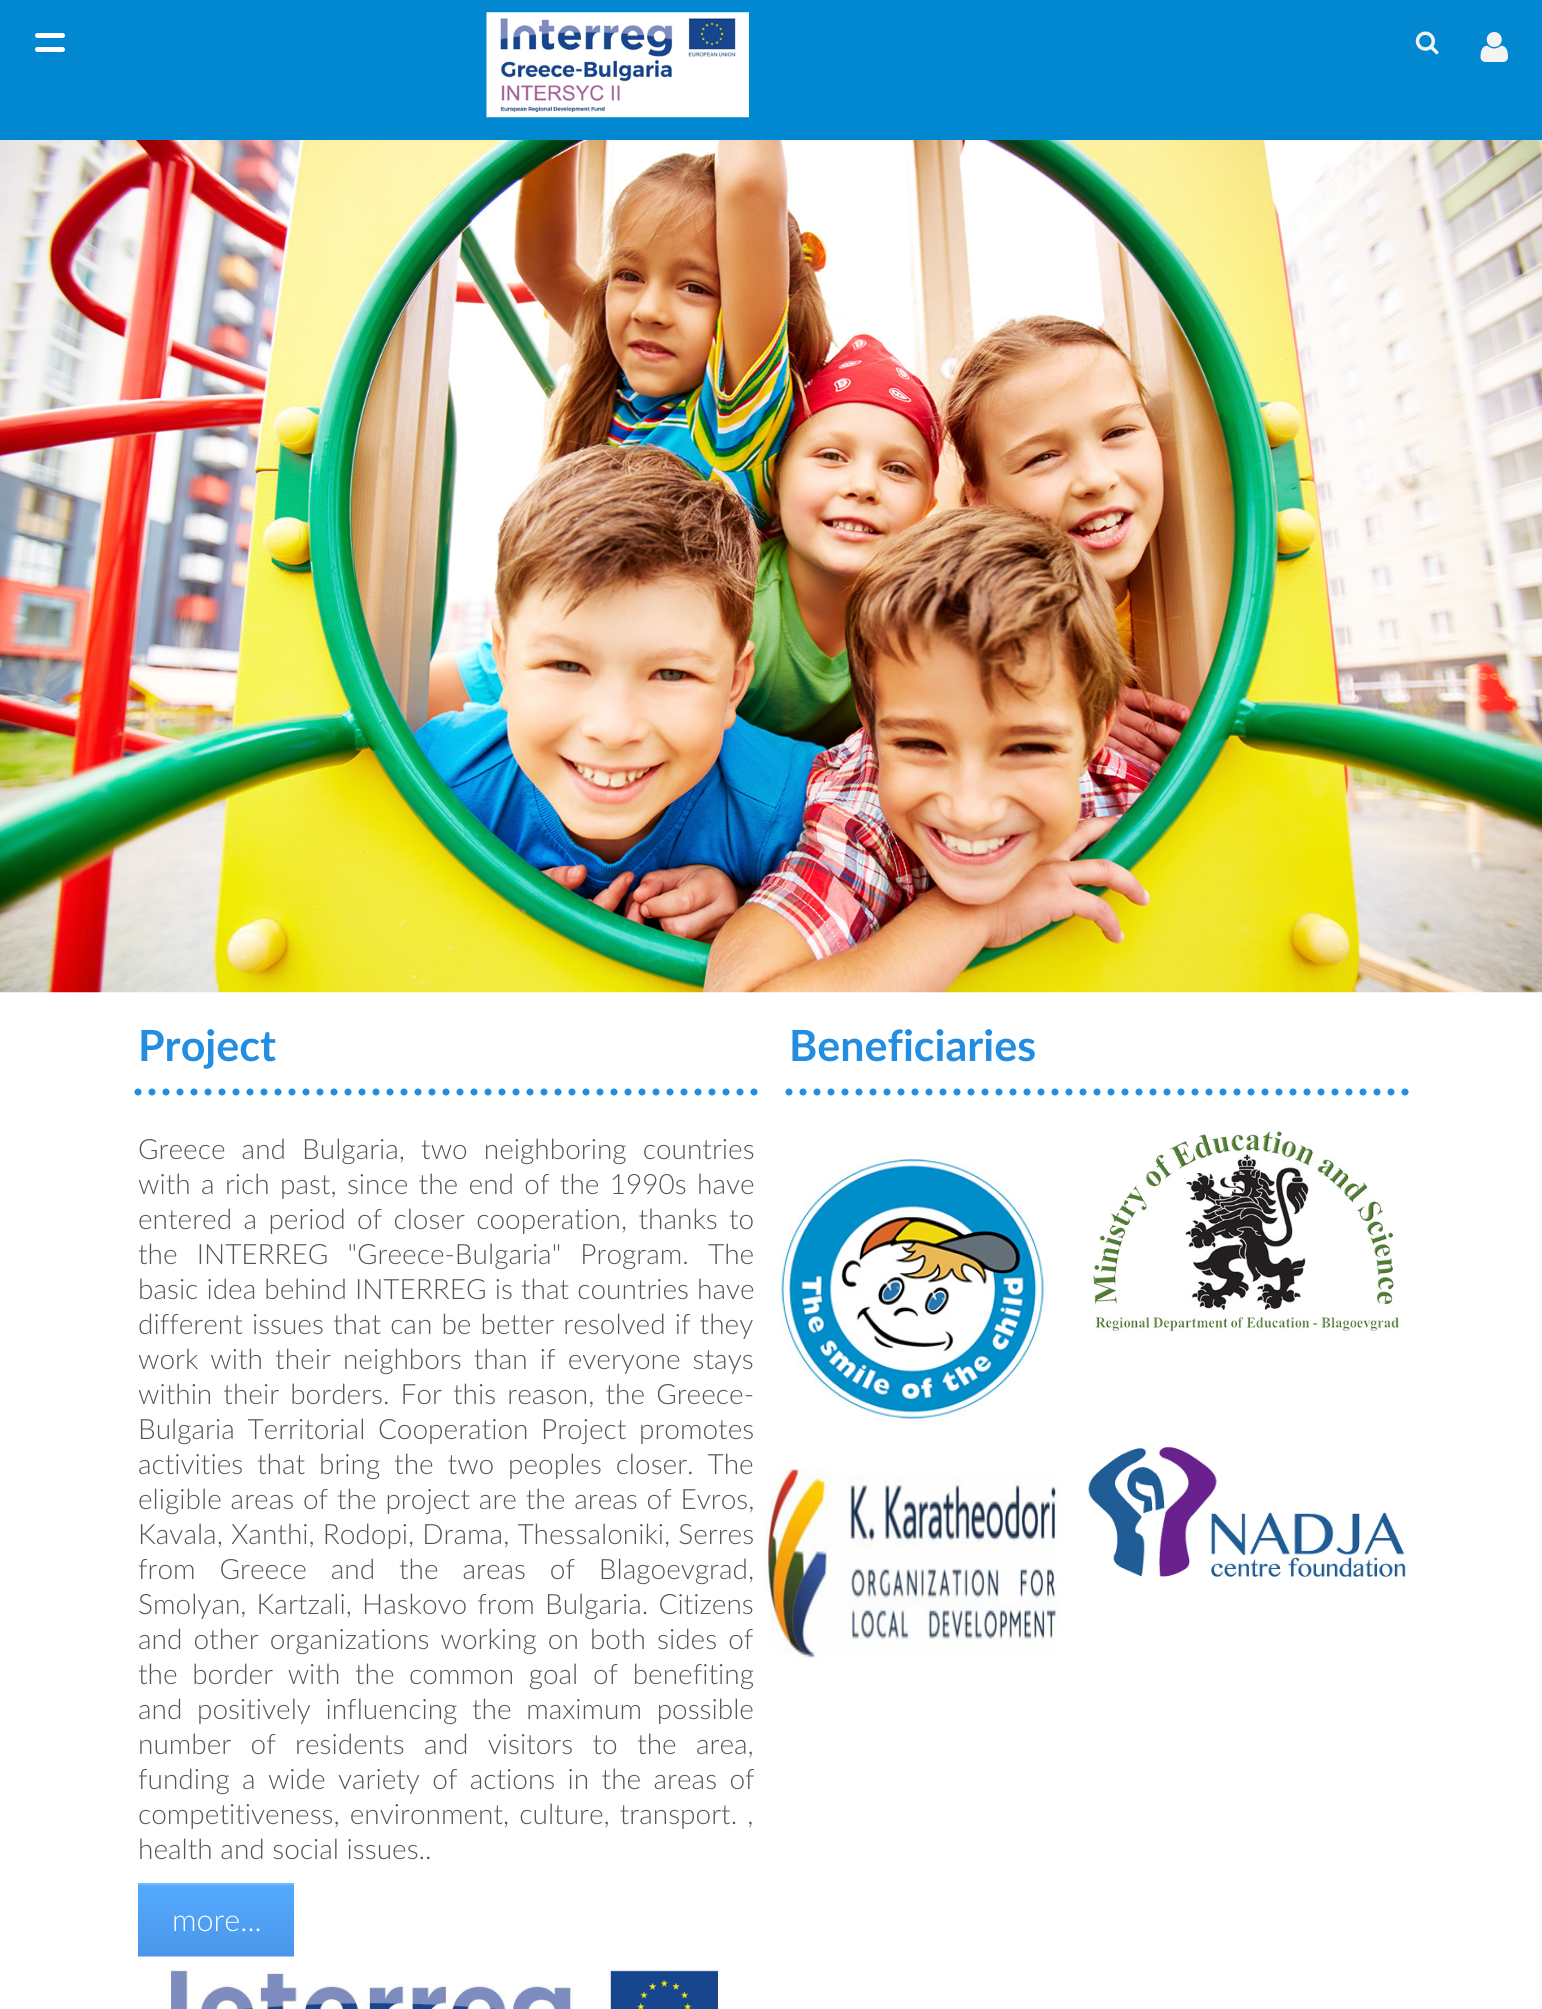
import math
import cairocffi as cairo

surface = cairo.ImageSurface(cairo.FORMAT_RGB24, 1542, 2009)
cr = cairo.Context(surface)
options = cairo.FontOptions()
options.set_hint_metrics(cairo.HINT_METRICS_OFF)
options.set_hint_style(cairo.HINT_STYLE_NONE)
cr.set_font_options(options)
cr.set_miter_limit(4)


def use_color(code):
    cr.set_source_rgb(*(v / 255 for v in bytes.fromhex(code[-6:])))


def spaced_text(x, y, s, letter, word):
    cr.move_to(x, y)
    for ch in s:
        cr.show_text(ch)
        cr.rel_move_to(letter + word * (ch == ' '), 0)


def round_rect(x, y, w, h, r):
    cr.new_sub_path()
    for i, (u, v) in enumerate([(x + w - r, y + h - r), (x + r, y + h - r), (x + r, y + r), (x + w - r, y + r)]):
        cr.arc(u, v, r, i * math.pi / 2, (i + 1) * math.pi / 2)
    cr.close_path()


def picture(path, x, y, w, h):
    cr.save()
    cr.set_source_surface(cairo.ImageSurface.create_from_png(path), x, y)
    cr.rectangle(x, y, w, h)
    cr.fill()
    cr.restore()


use_color("#ffffff")
cr.paint()
use_color("#0288d1")
cr.rectangle(0, 0, 1542, 140)
cr.fill()
use_color("#ffffff")
round_rect(35, 33, 30, 5, 2.5)
cr.fill()
round_rect(35, 47, 30, 5, 2.5)
cr.fill()
picture("img1.png", 486, 12, 263, 106)
picture("img2.png", 1415, 31, 24, 24)
picture("img3.png", 1480, 32, 28, 30)
picture("img4.png", 0, 140, 1542, 853)
cr.new_path()
cr.move_to(138, 1092)
cr.line_to(754, 1092)
use_color("#238ee1")
cr.set_line_width(7)
cr.set_line_cap(cairo.LINE_CAP_ROUND)
cr.set_dash([0, 14])
cr.stroke()
cr.select_font_face("Lato", cairo.FONT_SLANT_NORMAL, cairo.FONT_WEIGHT_BOLD)
cr.set_font_size(43)
cr.move_to(138, 1061)
cr.show_text("Project")
cr.select_font_face("Lato Light")
cr.set_font_size(28)
use_color("#555555")
spaced_text(138, 1159, "Greece and Bulgaria, two neighboring countries", 0, 8.5)
spaced_text(138, 1194, "with a rich past, since the end of the 1990s have", 0, 2.75)
spaced_text(138, 1229, "entered a period of closer cooperation, thanks to", 0, 3.75)
spaced_text(138, 1264, "the INTERREG \"Greece-Bulgaria\" Program. The", 0, 11.5)
spaced_text(138, 1299, "basic idea behind INTERREG is that countries have", 0, 0.5)
spaced_text(138, 1334, "different issues that can be better resolved if they", 0, 1.5)
spaced_text(138, 1369, "work with their neighbors than if everyone stays", 0, 4.5)
spaced_text(138, 1404, "within their borders. For this reason, the Greece-", 0, 3.5)
spaced_text(138, 1439, "Bulgaria Territorial Cooperation Project promotes", 0, 5)
spaced_text(138, 1474, "activities that bring the two peoples closer. The", 0, 6.25)
spaced_text(138, 1509, "eligible areas of the project are the areas of Evros,", 0, 1.25)
spaced_text(138, 1544, "Kavala, Xanthi, Rodopi, Drama, Thessaloniki, Serres", 0, 0.5)
spaced_text(138, 1579, "from Greece and the areas of Blagoevgrad,", 0, 16.25)
spaced_text(138, 1614, "Smolyan, Kartzali, Haskovo from Bulgaria. Citizens", 0, 2.5)
spaced_text(138, 1649, "and other organizations working on both sides of", 0, 3.5)
spaced_text(138, 1684, "the border with the common goal of benefiting", 0, 7)
spaced_text(138, 1719, "and positively influencing the maximum possible", 0, 7)
spaced_text(138, 1754, "number of residents and visitors to the area,", 0, 11.75)
spaced_text(138, 1789, "funding a wide variety of actions in the areas of", 0, 4.75)
spaced_text(138, 1824, "competitiveness, environment, culture, transport. ,", 0, 2.5)
cr.move_to(138, 1859)
cr.show_text("health and social issues..")
gradient = cairo.LinearGradient(216, 1883, 216, 1957)
gradient.add_color_stop_rgba(0, 0.329, 0.667, 1, 1)
gradient.add_color_stop_rgba(1, 0.29, 0.588, 0.91, 1)
cr.set_source(gradient)
cr.rectangle(138, 1885, 156, 72)
cr.fill()
use_color("#76bbff")
cr.rectangle(138, 1883, 156, 2)
cr.fill()
cr.set_font_size(30.5)
use_color("#ffffff")
cr.move_to(172, 1931)
cr.show_text("more...")
cr.new_path()
cr.move_to(789, 1092)
cr.line_to(1405, 1092)
use_color("#238ee1")
cr.stroke()
cr.select_font_face("Lato", cairo.FONT_SLANT_NORMAL, cairo.FONT_WEIGHT_BOLD)
cr.set_font_size(43)
cr.move_to(789, 1061)
cr.show_text("Beneficiaries")
picture("img5.png", 780, 1156, 269, 270)
picture("img6.png", 1089, 1130, 311, 206)
picture("img7.png", 765, 1469, 294, 190)
picture("img8.png", 1088, 1447, 318, 130)
picture("img9.png", 138, 1956, 582, 53)
surface.write_to_png("result.png")
